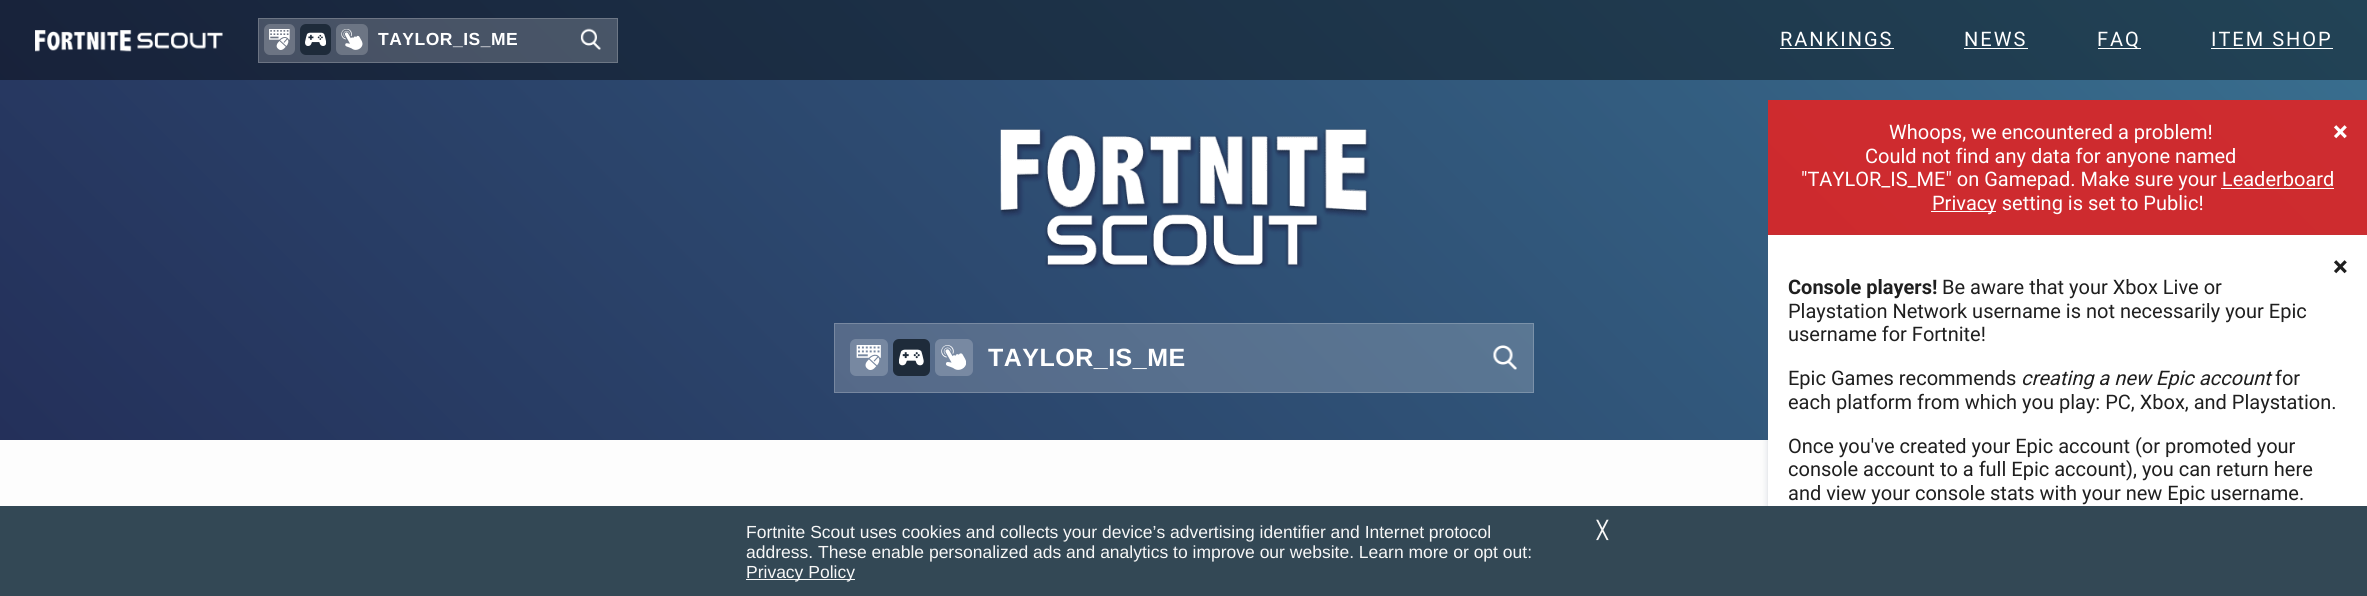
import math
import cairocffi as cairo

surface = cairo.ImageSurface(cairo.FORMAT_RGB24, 2367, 596)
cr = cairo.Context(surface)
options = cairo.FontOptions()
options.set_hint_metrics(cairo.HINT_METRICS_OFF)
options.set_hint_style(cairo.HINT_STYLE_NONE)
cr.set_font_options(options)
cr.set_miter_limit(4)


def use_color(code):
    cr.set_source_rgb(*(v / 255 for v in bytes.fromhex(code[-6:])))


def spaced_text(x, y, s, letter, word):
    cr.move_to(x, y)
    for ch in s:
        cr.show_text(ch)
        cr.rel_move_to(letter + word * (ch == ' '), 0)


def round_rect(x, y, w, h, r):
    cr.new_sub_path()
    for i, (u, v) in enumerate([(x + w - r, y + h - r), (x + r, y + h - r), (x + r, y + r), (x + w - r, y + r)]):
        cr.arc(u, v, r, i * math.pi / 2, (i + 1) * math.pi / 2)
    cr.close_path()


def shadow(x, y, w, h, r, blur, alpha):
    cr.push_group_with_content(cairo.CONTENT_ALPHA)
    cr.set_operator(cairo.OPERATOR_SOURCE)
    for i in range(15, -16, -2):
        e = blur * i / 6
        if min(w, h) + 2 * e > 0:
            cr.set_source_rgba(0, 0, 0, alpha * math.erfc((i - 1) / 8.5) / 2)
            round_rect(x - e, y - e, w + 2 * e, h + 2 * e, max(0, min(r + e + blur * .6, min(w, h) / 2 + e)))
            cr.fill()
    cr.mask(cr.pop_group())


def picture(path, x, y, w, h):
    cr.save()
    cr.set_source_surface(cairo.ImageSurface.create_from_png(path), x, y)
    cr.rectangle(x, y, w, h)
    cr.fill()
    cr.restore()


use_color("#fdfdfd")
cr.paint()
gradient = cairo.LinearGradient(482, 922, 1886, -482)
gradient.add_color_stop_rgba(0, 0.086, 0.114, 0.212, 1)
gradient.add_color_stop_rgba(1, 0.133, 0.263, 0.337, 1)
cr.set_source(gradient)
cr.rectangle(0, 0, 2367, 80)
cr.fill()
picture("img1.png", 35, 30, 188, 22)
gradient = cairo.LinearGradient(482, 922, 1886, -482)
gradient.add_color_stop_rgba(0, 0.271, 0.29, 0.369, 1)
gradient.add_color_stop_rgba(1, 0.306, 0.412, 0.471, 1)
cr.set_source(gradient)
cr.rectangle(258, 18, 360, 45)
cr.fill()
cr.rectangle(258.5, 18.5, 359, 44)
cr.set_source_rgba(1, 1, 1, 0.2)
cr.set_line_width(1)
cr.stroke()
use_color("#6c7483")
round_rect(264, 24, 31, 31, 6)
cr.fill()
picture("img2.png", 269, 29, 21, 21)
use_color("#1e2b3a")
round_rect(300, 24, 31, 31, 6)
cr.fill()
picture("img3.png", 305, 32, 21, 14)
use_color("#6c7584")
round_rect(336, 24, 32, 31, 6)
cr.fill()
picture("img4.png", 341, 29, 22, 21)
cr.select_font_face("Liberation Sans", cairo.FONT_SLANT_NORMAL, cairo.FONT_WEIGHT_BOLD)
cr.set_font_size(17.5)
use_color("#ffffff")
spaced_text(378, 45, "TAYLOR_IS_ME", 0.5, 0)
picture("img5.png", 580, 28, 21, 22)
cr.select_font_face("Roboto")
cr.set_font_size(20)
spaced_text(1780, 46, "RANKINGS", 2, 0)
cr.rectangle(1780, 48, 114, 1)
cr.fill()
spaced_text(1964, 46, "NEWS", 2, 0)
cr.rectangle(1964, 48, 64, 1)
cr.fill()
cr.rectangle(2098, 48, 43, 1)
cr.fill()
spaced_text(2097, 46, "FAQ", 2, 0)
spaced_text(2211, 46, "ITEM SHOP", 2, 0)
cr.rectangle(2211, 48, 122, 1)
cr.fill()
gradient = cairo.LinearGradient(482, 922, 1886, -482)
gradient.add_color_stop_rgba(0, 0.141, 0.188, 0.353, 1)
gradient.add_color_stop_rgba(1, 0.224, 0.435, 0.561, 1)
cr.set_source(gradient)
cr.rectangle(0, 80, 2367, 360)
cr.fill()
gradient = cairo.LinearGradient(482, 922, 1886, -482)
gradient.add_color_stop_rgba(0, 0.8, 0.149, 0.165, 1)
gradient.add_color_stop_rgba(1, 0.808, 0.173, 0.188, 1)
cr.set_source(gradient)
cr.rectangle(1768, 100, 599, 135)
cr.fill()
gradient = cairo.LinearGradient(482, 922, 1886, -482)
gradient.add_color_stop_rgba(0, 0.314, 0.349, 0.482, 1)
gradient.add_color_stop_rgba(1, 0.38, 0.549, 0.647, 1)
cr.set_source(gradient)
cr.rectangle(834, 323, 700, 70)
cr.fill()
picture("img6.png", 1000, 129, 370, 140)
cr.rectangle(834.5, 323.5, 699, 69)
cr.set_source_rgba(1, 1, 1, 0.2)
cr.stroke()
use_color("#7788a1")
round_rect(850, 339, 38, 37, 6)
cr.fill()
picture("img7.png", 856, 345, 25, 25)
use_color("#1e2b3a")
round_rect(893, 339, 37, 37, 6)
cr.fill()
picture("img8.png", 899, 349, 25, 17)
use_color("#7889a2")
round_rect(935, 339, 38, 37, 6)
cr.fill()
picture("img9.png", 941, 345, 25, 25)
cr.save()
cr.rectangle(988, 344, 490, 29)
cr.clip()
cr.select_font_face("Liberation Sans", cairo.FONT_SLANT_NORMAL, cairo.FONT_WEIGHT_BOLD)
cr.set_font_size(25)
use_color("#ffffff")
spaced_text(988, 366, "TAYLOR_IS_ME", 0.5, 0)
cr.restore()
picture("img10.png", 1493, 345, 24, 25)
use_color("#ffffff")
cr.move_to(1889, 139)
cr.show_text("Whoops, we encountered a problem!")
cr.select_font_face("Roboto", cairo.FONT_SLANT_NORMAL, cairo.FONT_WEIGHT_BOLD)
cr.set_font_size(28)
cr.move_to(2333, 141)
cr.show_text("×")
cr.select_font_face("Roboto")
cr.set_font_size(20)
cr.move_to(1865, 163)
cr.show_text("Could not find any data for anyone named")
cr.move_to(1801, 186)
cr.show_text("\"TAYLOR_IS_ME\" on Gamepad. Make sure your Leaderboard")
cr.rectangle(1931, 211, 65, 1)
cr.fill()
cr.move_to(1932, 210)
cr.show_text("Privacy setting is set to Public!")
cr.rectangle(2221, 188, 113, 1)
cr.fill()
use_color("#4a5d78")
shadow(1769, 239, 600, 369, 0, 4, 0.3)
use_color("#ffffff")
cr.rectangle(1768, 235, 599, 271)
cr.fill()
cr.select_font_face("Roboto", cairo.FONT_SLANT_NORMAL, cairo.FONT_WEIGHT_BOLD)
cr.set_font_size(28)
use_color("#1f1f1f")
cr.move_to(2333, 276)
cr.show_text("×")
cr.set_font_size(20)
cr.move_to(1788, 294)
cr.show_text("Console players!")
cr.select_font_face("Roboto")
cr.move_to(1942, 294)
cr.show_text("Be aware that your Xbox Live or")
cr.move_to(1788, 318)
cr.show_text("Playstation Network username is not necessarily your Epic")
cr.move_to(1788, 341)
cr.show_text("username for Fortnite!")
cr.move_to(1788, 385)
cr.show_text("Epic Games recommends")
cr.select_font_face("Roboto", cairo.FONT_SLANT_ITALIC)
cr.move_to(2021, 385)
cr.show_text("creating a new Epic account")
cr.select_font_face("Roboto")
cr.move_to(2275, 385)
cr.show_text("for")
cr.move_to(1788, 409)
cr.show_text("each platform from which you play: PC, Xbox, and Playstation.")
cr.move_to(1788, 453)
cr.show_text("Once you've created your Epic account (or promoted your")
cr.move_to(1788, 476)
cr.show_text("console account to a full Epic account), you can return here")
cr.move_to(1788, 500)
cr.show_text("and view your console stats with your new Epic username.")
use_color("#334855")
cr.rectangle(0, 506, 2367, 90)
cr.fill()
cr.select_font_face("Liberation Sans")
cr.set_font_size(17.5)
use_color("#f7f7f7")
cr.move_to(746, 538)
cr.show_text("Fortnite Scout uses cookies and collects your device’s advertising identifier and Internet protocol")
cr.move_to(746, 558)
cr.show_text("address. These enable personalized ads and analytics to improve our website. Learn more or opt out:")
cr.rectangle(746, 579, 109, 1)
cr.fill()
cr.move_to(746, 578)
cr.show_text("Privacy Policy")
cr.select_font_face("DejaVu Sans", cairo.FONT_SLANT_NORMAL, cairo.FONT_WEIGHT_BOLD)
cr.set_font_size(17)
cr.move_to(1597, 536)
cr.show_text("╳")
surface.write_to_png("result.png")
